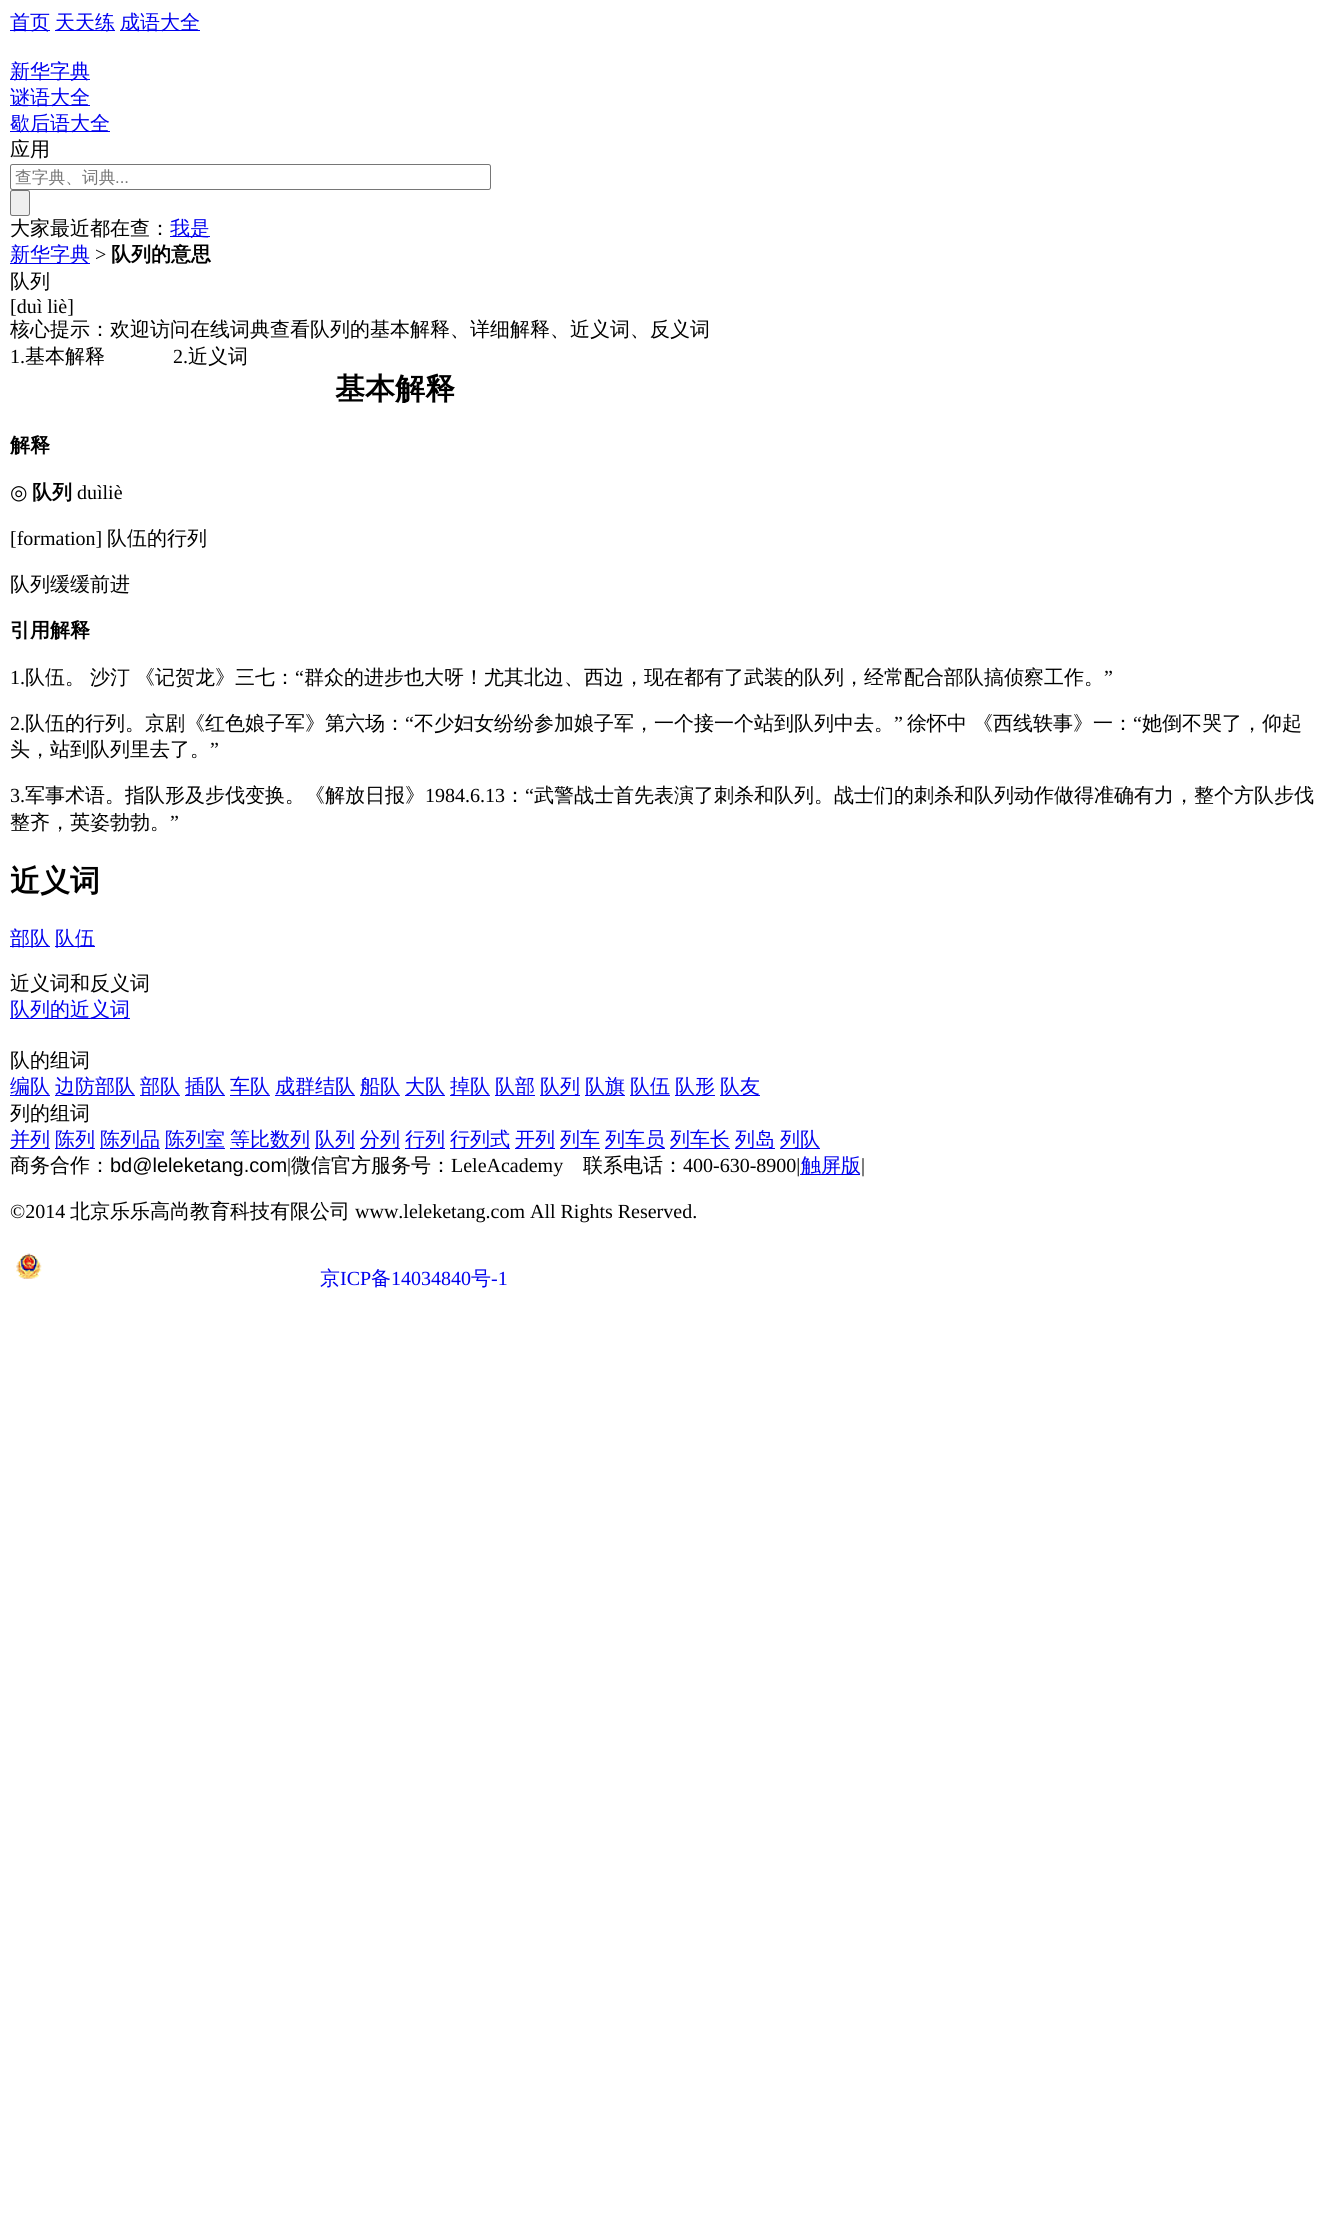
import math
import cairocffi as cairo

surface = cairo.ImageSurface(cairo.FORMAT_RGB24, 1328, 2236)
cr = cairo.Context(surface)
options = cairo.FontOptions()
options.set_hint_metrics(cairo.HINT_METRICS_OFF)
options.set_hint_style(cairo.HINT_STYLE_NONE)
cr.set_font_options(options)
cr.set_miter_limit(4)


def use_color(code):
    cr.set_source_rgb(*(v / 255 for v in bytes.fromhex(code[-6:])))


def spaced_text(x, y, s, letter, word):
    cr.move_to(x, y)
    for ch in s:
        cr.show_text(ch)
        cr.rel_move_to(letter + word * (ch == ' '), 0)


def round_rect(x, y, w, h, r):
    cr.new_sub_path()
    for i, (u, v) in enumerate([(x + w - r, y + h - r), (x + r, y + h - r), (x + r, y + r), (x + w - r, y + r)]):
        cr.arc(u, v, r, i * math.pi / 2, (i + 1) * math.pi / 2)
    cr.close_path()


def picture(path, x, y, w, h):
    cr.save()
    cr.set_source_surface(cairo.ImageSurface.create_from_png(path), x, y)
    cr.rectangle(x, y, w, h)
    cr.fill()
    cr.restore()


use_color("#ffffff")
cr.paint()
use_color("#0000ee")
cr.rectangle(10, 30, 40, 1)
cr.fill()
cr.select_font_face("WenQuanYi Zen Hei Medium")
cr.set_font_size(20)
cr.move_to(10, 29)
cr.show_text("首页")
cr.rectangle(55, 30, 60, 1)
cr.fill()
cr.move_to(55, 29)
cr.show_text("天天练")
cr.rectangle(120, 30, 80, 1)
cr.fill()
cr.move_to(120, 29)
cr.show_text("成语大全")
cr.rectangle(10, 79, 80, 1)
cr.fill()
cr.move_to(10, 78)
cr.show_text("新华字典")
cr.rectangle(10, 105, 80, 1)
cr.fill()
cr.move_to(10, 104)
cr.show_text("谜语大全")
cr.rectangle(10, 131, 100, 1)
cr.fill()
cr.move_to(10, 130)
cr.show_text("歇后语大全")
use_color("#000000")
cr.move_to(10, 156)
cr.show_text("应用")
round_rect(10.5, 164.5, 480, 25, 2)
use_color("#767676")
cr.set_line_width(1)
cr.stroke()
cr.set_font_size(16.75)
use_color("#757575")
cr.move_to(15, 183)
cr.show_text("查字典、词典")
cr.select_font_face("Liberation Sans")
cr.move_to(115, 183)
cr.show_text("...")
use_color("#efefef")
round_rect(10.5, 190.5, 19, 25, 2)
cr.fill_preserve()
use_color("#767676")
cr.stroke()
cr.select_font_face("WenQuanYi Zen Hei Medium")
cr.set_font_size(20)
use_color("#000000")
cr.move_to(10, 235)
cr.show_text("大家最近都在查：")
use_color("#0000ee")
cr.rectangle(170, 236, 40, 1)
cr.fill()
cr.move_to(170, 235)
cr.show_text("我是")
cr.rectangle(10, 263, 80, 1)
cr.fill()
cr.move_to(10, 261)
cr.show_text("新华字典")
cr.select_font_face("Liberation Serif")
use_color("#000000")
cr.move_to(95, 261)
cr.show_text(">")
cr.select_font_face("WenQuanYi Zen Hei", cairo.FONT_SLANT_NORMAL, cairo.FONT_WEIGHT_BOLD)
cr.move_to(111, 261)
cr.show_text("队列的意思")
cr.select_font_face("WenQuanYi Zen Hei Medium")
cr.move_to(10, 288)
cr.show_text("队列")
cr.select_font_face("Liberation Serif")
cr.move_to(10, 313)
cr.show_text("[duì liè]")
cr.select_font_face("WenQuanYi Zen Hei Medium")
cr.move_to(10, 336)
cr.show_text("核心提示：欢迎访问在线词典查看队列的基本解释、详细解释、近义词、反义词")
cr.select_font_face("Liberation Serif")
cr.move_to(10, 363)
cr.show_text("1.")
cr.select_font_face("WenQuanYi Zen Hei Medium")
cr.move_to(25, 363)
cr.show_text("基本解释")
cr.select_font_face("Liberation Serif")
cr.move_to(173, 363)
cr.show_text("2.")
cr.select_font_face("WenQuanYi Zen Hei Medium")
cr.move_to(188, 363)
cr.show_text("近义词")
cr.select_font_face("WenQuanYi Zen Hei", cairo.FONT_SLANT_NORMAL, cairo.FONT_WEIGHT_BOLD)
cr.set_font_size(30)
cr.move_to(335, 399)
cr.show_text("基本解释")
cr.set_font_size(20)
cr.move_to(10, 452)
cr.show_text("解释")
cr.select_font_face("DejaVu Sans")
cr.move_to(10, 499)
cr.show_text("◎")
cr.select_font_face("WenQuanYi Zen Hei", cairo.FONT_SLANT_NORMAL, cairo.FONT_WEIGHT_BOLD)
cr.move_to(32, 499)
cr.show_text("队列")
cr.select_font_face("Liberation Serif")
cr.move_to(77, 499)
cr.show_text("duìliè")
cr.move_to(10, 545)
cr.show_text("[formation]")
cr.select_font_face("WenQuanYi Zen Hei Medium")
cr.move_to(107, 545)
cr.show_text("队伍的行列")
cr.move_to(10, 591)
cr.show_text("队列缓缓前进")
cr.select_font_face("WenQuanYi Zen Hei", cairo.FONT_SLANT_NORMAL, cairo.FONT_WEIGHT_BOLD)
cr.move_to(10, 637)
cr.show_text("引用解释")
cr.select_font_face("Liberation Serif")
cr.move_to(10, 684)
cr.show_text("1.")
cr.select_font_face("WenQuanYi Zen Hei Medium")
spaced_text(25, 684, "队伍。 沙汀 《记贺龙》三七：", 0, -1)
cr.select_font_face("Liberation Serif")
cr.move_to(295, 684)
cr.show_text("“")
cr.select_font_face("WenQuanYi Zen Hei Medium")
cr.move_to(304, 684)
cr.show_text("群众的进步也大呀！尤其北边、西边，现在都有了武装的队列，经常配合部队搞侦察工作。")
cr.select_font_face("Liberation Serif")
cr.move_to(1104, 684)
cr.show_text("”")
cr.move_to(10, 730)
cr.show_text("2.")
cr.select_font_face("WenQuanYi Zen Hei Medium")
cr.move_to(25, 730)
cr.show_text("队伍的行列。京剧《红色娘子军》第六场：")
cr.select_font_face("Liberation Serif")
cr.move_to(405, 730)
cr.show_text("“")
cr.select_font_face("WenQuanYi Zen Hei Medium")
cr.move_to(414, 730)
cr.show_text("不少妇女纷纷参加娘子军，一个接一个站到队列中去。")
cr.select_font_face("Liberation Serif")
cr.move_to(894, 730)
cr.show_text("”")
cr.select_font_face("WenQuanYi Zen Hei Medium")
cr.move_to(907, 730)
cr.show_text("徐怀中 《西线轶事》一：")
cr.select_font_face("Liberation Serif")
cr.move_to(1133, 730)
cr.show_text("“")
cr.select_font_face("WenQuanYi Zen Hei Medium")
cr.move_to(1142, 730)
cr.show_text("她倒不哭了，仰起")
cr.move_to(10, 756)
cr.show_text("头，站到队列里去了。")
cr.select_font_face("Liberation Serif")
cr.move_to(210, 756)
cr.show_text("”")
cr.move_to(10, 802)
cr.show_text("3.")
cr.select_font_face("WenQuanYi Zen Hei Medium")
cr.move_to(25, 802)
cr.show_text("军事术语。指队形及步伐变换。《解放日报》")
cr.select_font_face("Liberation Serif")
cr.move_to(425, 802)
cr.show_text("1984.6.13")
cr.select_font_face("WenQuanYi Zen Hei Medium")
cr.move_to(505, 802)
cr.show_text("：")
cr.select_font_face("Liberation Serif")
cr.move_to(525, 802)
cr.show_text("“")
cr.select_font_face("WenQuanYi Zen Hei Medium")
cr.move_to(534, 802)
cr.show_text("武警战士首先表演了刺杀和队列。战士们的刺杀和队列动作做得准确有力，整个方队步伐")
cr.move_to(10, 829)
cr.show_text("整齐，英姿勃勃。")
cr.select_font_face("Liberation Serif")
cr.move_to(170, 829)
cr.show_text("”")
cr.select_font_face("WenQuanYi Zen Hei", cairo.FONT_SLANT_NORMAL, cairo.FONT_WEIGHT_BOLD)
cr.set_font_size(30)
cr.move_to(10, 891)
cr.show_text("近义词")
use_color("#0000ee")
cr.rectangle(10, 946, 40, 1)
cr.fill()
cr.select_font_face("WenQuanYi Zen Hei Medium")
cr.set_font_size(20)
cr.move_to(10, 945)
cr.show_text("部队")
cr.rectangle(55, 946, 40, 1)
cr.fill()
cr.move_to(55, 945)
cr.show_text("队伍")
use_color("#000000")
cr.move_to(10, 990)
cr.show_text("近义词和反义词")
use_color("#0000ee")
cr.rectangle(10, 1018, 120, 1)
cr.fill()
cr.move_to(10, 1016)
cr.show_text("队列的近义词")
use_color("#000000")
cr.move_to(10, 1067)
cr.show_text("队的组词")
use_color("#0000ee")
cr.rectangle(10, 1095, 40, 1)
cr.fill()
cr.move_to(10, 1093)
cr.show_text("编队")
cr.rectangle(55, 1095, 80, 1)
cr.fill()
cr.move_to(55, 1093)
cr.show_text("边防部队")
cr.rectangle(140, 1095, 40, 1)
cr.fill()
cr.move_to(140, 1093)
cr.show_text("部队")
cr.rectangle(185, 1095, 40, 1)
cr.fill()
cr.move_to(185, 1093)
cr.show_text("插队")
cr.rectangle(230, 1095, 40, 1)
cr.fill()
cr.move_to(230, 1093)
cr.show_text("车队")
cr.rectangle(275, 1095, 80, 1)
cr.fill()
cr.move_to(275, 1093)
cr.show_text("成群结队")
cr.rectangle(360, 1095, 40, 1)
cr.fill()
cr.move_to(360, 1093)
cr.show_text("船队")
cr.rectangle(405, 1095, 40, 1)
cr.fill()
cr.move_to(405, 1093)
cr.show_text("大队")
cr.rectangle(450, 1095, 40, 1)
cr.fill()
cr.move_to(450, 1093)
cr.show_text("掉队")
cr.rectangle(495, 1095, 40, 1)
cr.fill()
cr.move_to(495, 1093)
cr.show_text("队部")
cr.rectangle(540, 1095, 40, 1)
cr.fill()
cr.move_to(540, 1093)
cr.show_text("队列")
cr.rectangle(585, 1095, 40, 1)
cr.fill()
cr.move_to(585, 1093)
cr.show_text("队旗")
cr.rectangle(630, 1095, 40, 1)
cr.fill()
cr.move_to(630, 1093)
cr.show_text("队伍")
cr.rectangle(675, 1095, 40, 1)
cr.fill()
cr.move_to(675, 1093)
cr.show_text("队形")
cr.rectangle(720, 1095, 40, 1)
cr.fill()
cr.move_to(720, 1093)
cr.show_text("队友")
use_color("#000000")
cr.move_to(10, 1120)
cr.show_text("列的组词")
use_color("#0000ee")
cr.rectangle(10, 1148, 40, 1)
cr.fill()
cr.move_to(10, 1146)
cr.show_text("并列")
cr.rectangle(55, 1148, 40, 1)
cr.fill()
cr.move_to(55, 1146)
cr.show_text("陈列")
cr.rectangle(100, 1148, 60, 1)
cr.fill()
cr.move_to(100, 1146)
cr.show_text("陈列品")
cr.rectangle(165, 1148, 60, 1)
cr.fill()
cr.move_to(165, 1146)
cr.show_text("陈列室")
cr.rectangle(230, 1148, 80, 1)
cr.fill()
cr.move_to(230, 1146)
cr.show_text("等比数列")
cr.rectangle(315, 1148, 40, 1)
cr.fill()
cr.move_to(315, 1146)
cr.show_text("队列")
cr.rectangle(360, 1148, 40, 1)
cr.fill()
cr.move_to(360, 1146)
cr.show_text("分列")
cr.rectangle(405, 1148, 40, 1)
cr.fill()
cr.move_to(405, 1146)
cr.show_text("行列")
cr.rectangle(450, 1148, 60, 1)
cr.fill()
cr.move_to(450, 1146)
cr.show_text("行列式")
cr.rectangle(515, 1148, 40, 1)
cr.fill()
cr.move_to(515, 1146)
cr.show_text("开列")
cr.rectangle(560, 1148, 40, 1)
cr.fill()
cr.move_to(560, 1146)
cr.show_text("列车")
cr.rectangle(605, 1148, 60, 1)
cr.fill()
cr.move_to(605, 1146)
cr.show_text("列车员")
cr.rectangle(670, 1148, 60, 1)
cr.fill()
cr.move_to(670, 1146)
cr.show_text("列车长")
cr.rectangle(735, 1148, 40, 1)
cr.fill()
cr.move_to(735, 1146)
cr.show_text("列岛")
cr.rectangle(780, 1148, 40, 1)
cr.fill()
cr.move_to(780, 1146)
cr.show_text("列队")
use_color("#000000")
cr.move_to(10, 1172)
cr.show_text("商务合作：")
cr.select_font_face("Liberation Sans")
cr.move_to(110, 1172)
cr.show_text("bd@leleketang.com")
cr.select_font_face("Liberation Serif")
cr.move_to(287, 1172)
cr.show_text("|")
cr.select_font_face("WenQuanYi Zen Hei Medium")
cr.move_to(291, 1172)
cr.show_text("微信官方服务号：")
cr.select_font_face("Liberation Serif")
cr.move_to(451, 1172)
cr.show_text("LeleAcademy")
cr.select_font_face("WenQuanYi Zen Hei Medium")
cr.move_to(583, 1172)
cr.show_text("联系电话：")
cr.select_font_face("Liberation Serif")
cr.move_to(683, 1172)
cr.show_text("400-630-8900|")
use_color("#0000ee")
cr.rectangle(800, 1174, 60, 1)
cr.fill()
cr.select_font_face("WenQuanYi Zen Hei Medium")
cr.move_to(801, 1172)
cr.show_text("触屏版")
cr.select_font_face("Liberation Serif")
use_color("#000000")
cr.move_to(861, 1172)
cr.show_text("|")
cr.move_to(10, 1218)
cr.show_text("©2014")
cr.select_font_face("WenQuanYi Zen Hei Medium")
cr.move_to(70, 1218)
cr.show_text("北京乐乐高尚教育科技有限公司")
cr.select_font_face("Liberation Serif")
cr.move_to(355, 1218)
cr.show_text("www.leleketang.com All Rights Reserved.")
picture("img1.png", 16, 1253, 26, 26)
cr.select_font_face("WenQuanYi Zen Hei Medium")
use_color("#0000ee")
cr.move_to(320, 1285)
cr.show_text("京")
cr.select_font_face("Liberation Serif")
cr.move_to(340, 1285)
cr.show_text("ICP")
cr.select_font_face("WenQuanYi Zen Hei Medium")
cr.move_to(371, 1285)
cr.show_text("备")
cr.select_font_face("Liberation Serif")
cr.move_to(391, 1285)
cr.show_text("14034840")
cr.select_font_face("WenQuanYi Zen Hei Medium")
cr.move_to(471, 1285)
cr.show_text("号")
cr.select_font_face("Liberation Serif")
cr.move_to(491, 1285)
cr.show_text("-1")
surface.write_to_png("result.png")
